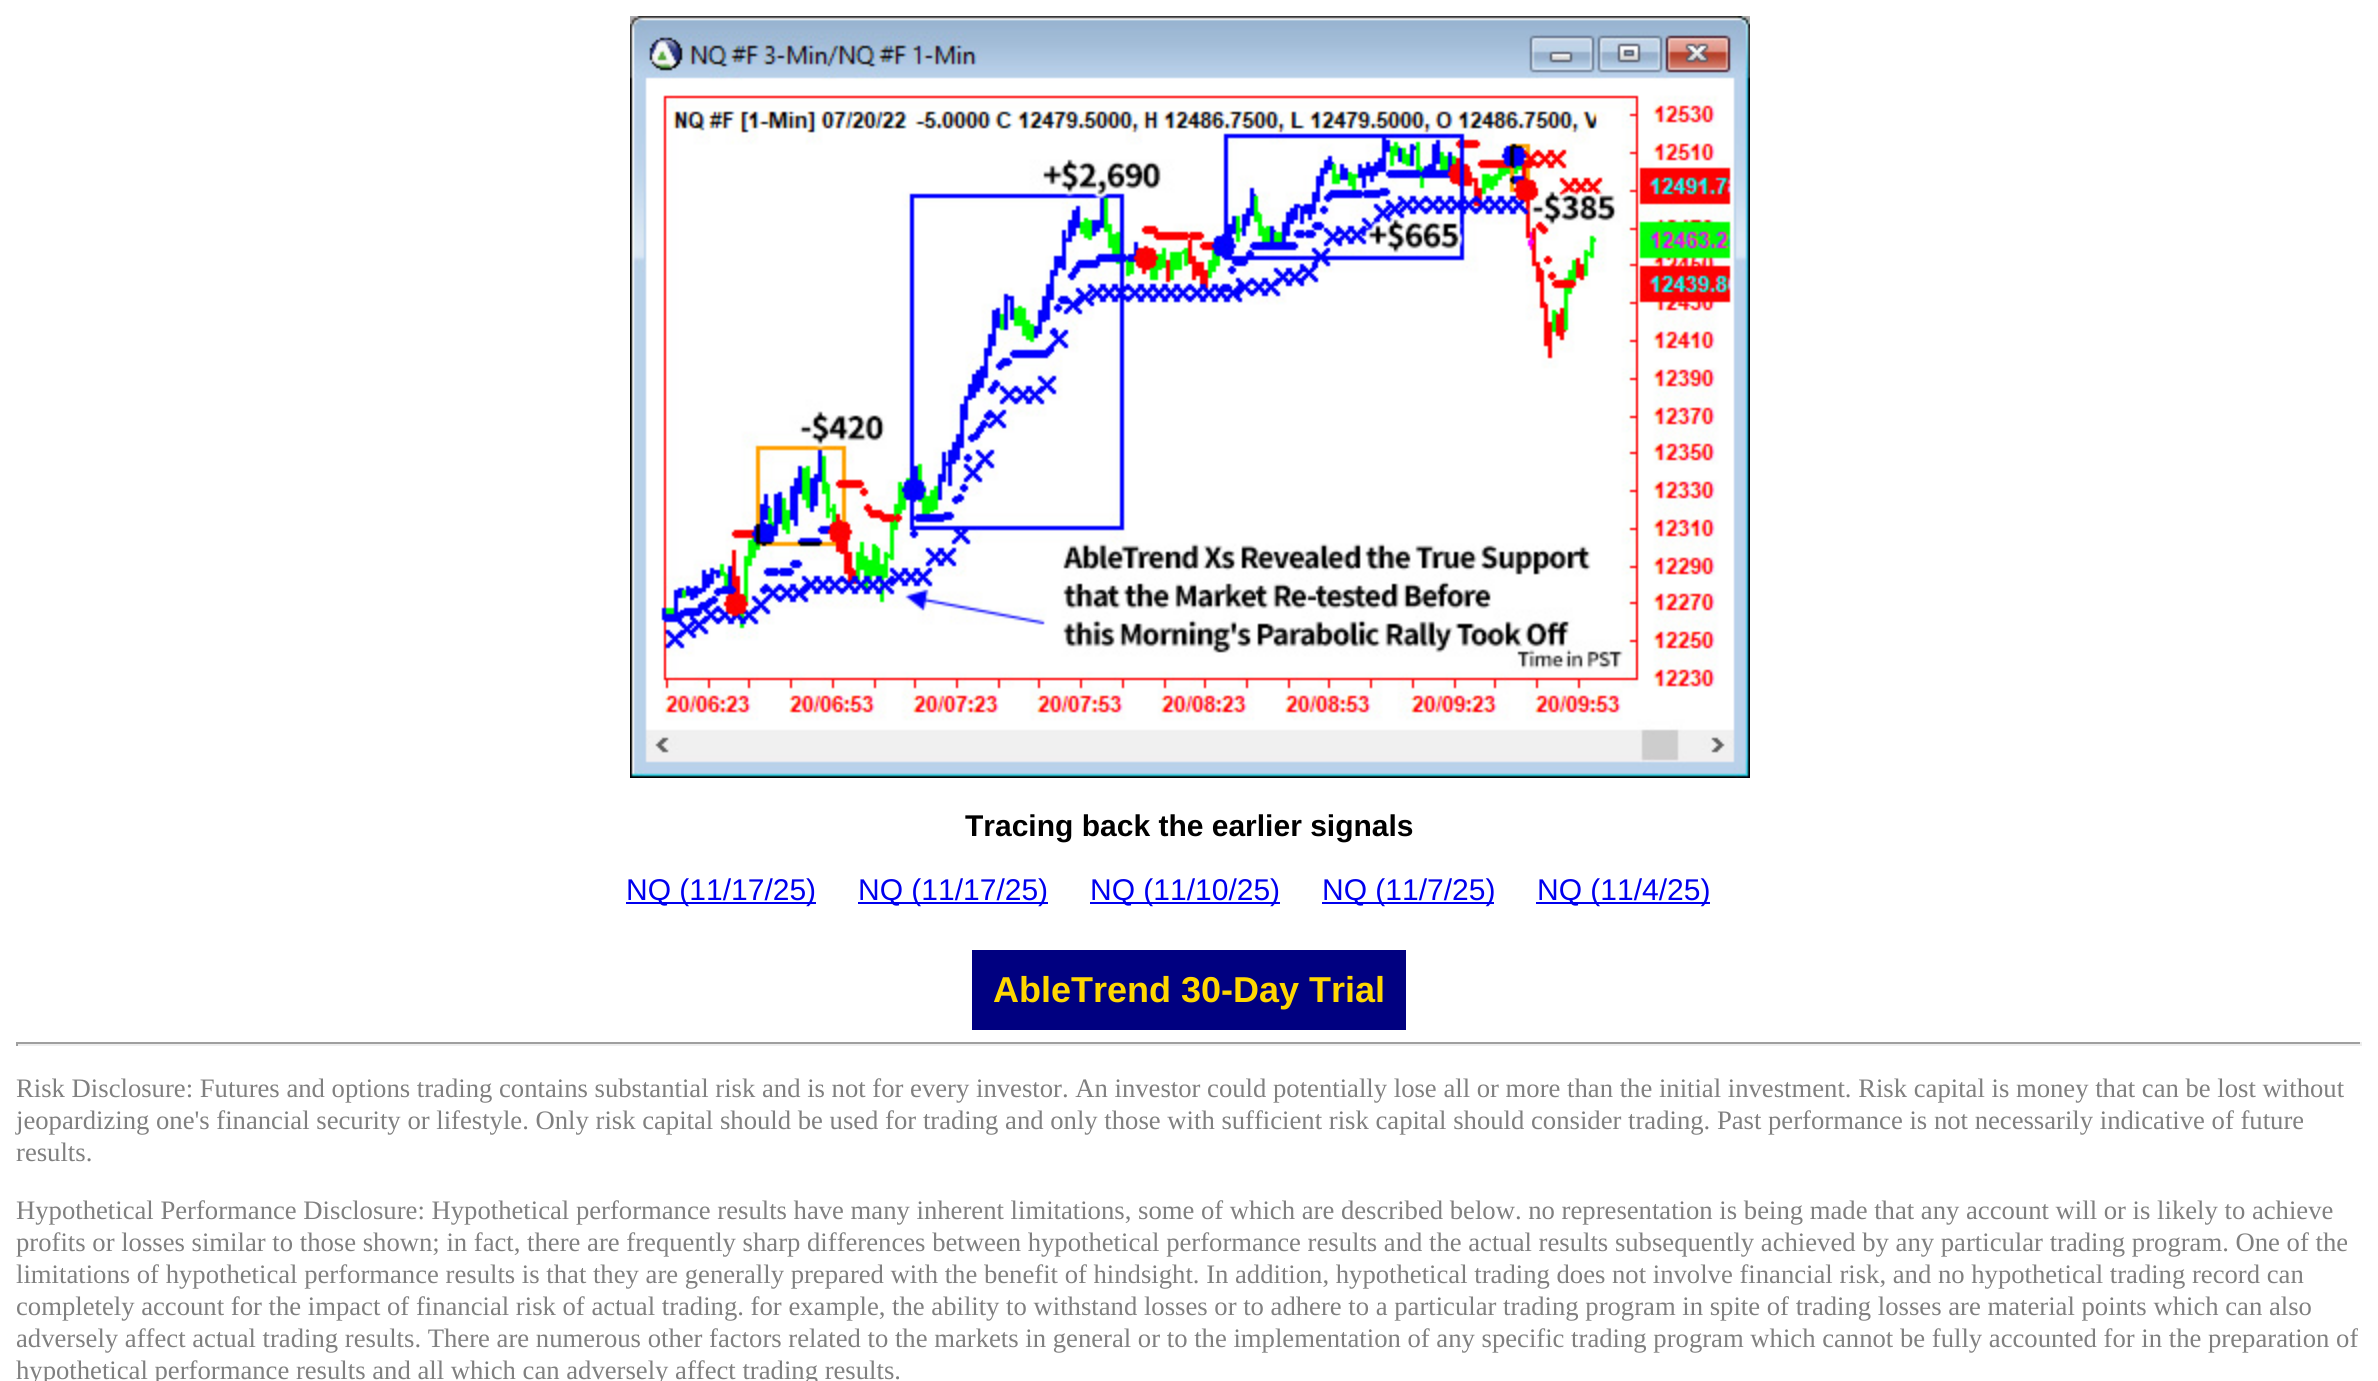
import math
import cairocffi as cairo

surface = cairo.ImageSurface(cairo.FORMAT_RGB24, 2378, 1381)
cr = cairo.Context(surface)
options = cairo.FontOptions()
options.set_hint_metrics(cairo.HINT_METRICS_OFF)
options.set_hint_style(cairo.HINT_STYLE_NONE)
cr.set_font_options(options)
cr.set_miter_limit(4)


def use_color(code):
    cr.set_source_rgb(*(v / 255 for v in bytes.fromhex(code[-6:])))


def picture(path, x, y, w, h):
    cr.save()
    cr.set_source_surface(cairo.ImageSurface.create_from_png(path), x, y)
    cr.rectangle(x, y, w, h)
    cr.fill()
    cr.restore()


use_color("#ffffff")
cr.paint()
picture("img1.png", 630, 16, 1120, 762)
cr.select_font_face("Liberation Sans", cairo.FONT_SLANT_NORMAL, cairo.FONT_WEIGHT_BOLD)
cr.set_font_size(30)
use_color("#000000")
cr.move_to(965, 836)
cr.show_text("Tracing back the earlier signals")
use_color("#0000ee")
cr.rectangle(626, 902, 190, 2)
cr.fill()
cr.select_font_face("Liberation Sans")
cr.move_to(626, 900)
cr.show_text("NQ (11/17/25)")
cr.rectangle(858, 902, 190, 2)
cr.fill()
cr.move_to(858, 900)
cr.show_text("NQ (11/17/25)")
cr.rectangle(1090, 902, 190, 2)
cr.fill()
cr.move_to(1090, 900)
cr.show_text("NQ (11/10/25)")
cr.rectangle(1322, 902, 172, 2)
cr.fill()
cr.move_to(1322, 900)
cr.show_text("NQ (11/7/25)")
cr.rectangle(1536, 902, 174, 2)
cr.fill()
cr.move_to(1537, 900)
cr.show_text("NQ (11/4/25)")
use_color("#000080")
cr.rectangle(972, 950, 434, 80)
cr.fill()
cr.select_font_face("Liberation Sans", cairo.FONT_SLANT_NORMAL, cairo.FONT_WEIGHT_BOLD)
cr.set_font_size(36)
use_color("#ffd700")
cr.move_to(993, 1002)
cr.show_text("AbleTrend 30-Day Trial")
use_color("#9f9f9f")
cr.rectangle(16, 1042, 2346, 2)
cr.fill()
use_color("#eeeeee")
cr.rectangle(2360, 1042, 2, 4)
cr.fill()
cr.rectangle(16, 1044, 2346, 2)
cr.fill()
use_color("#9f9f9f")
cr.rectangle(16, 1042, 2, 4)
cr.fill()
cr.select_font_face("Liberation Serif")
cr.set_font_size(26.67)
use_color("#808080")
cr.move_to(16, 1097)
cr.show_text("Risk Disclosure: Futures and options trading contains substantial risk and is not for every investor. An investor could potentially lose all or more than the initial investment. Risk capital is money that can be lost without")
cr.move_to(16, 1129)
cr.show_text("jeopardizing one's financial security or lifestyle. Only risk capital should be used for trading and only those with sufficient risk capital should consider trading. Past performance is not necessarily indicative of future")
cr.move_to(16, 1161)
cr.show_text("results.")
cr.move_to(16, 1219)
cr.show_text("Hypothetical Performance Disclosure: Hypothetical performance results have many inherent limitations, some of which are described below. no representation is being made that any account will or is likely to achieve")
cr.move_to(16, 1251)
cr.show_text("profits or losses similar to those shown; in fact, there are frequently sharp differences between hypothetical performance results and the actual results subsequently achieved by any particular trading program. One of the")
cr.move_to(16, 1283)
cr.show_text("limitations of hypothetical performance results is that they are generally prepared with the benefit of hindsight. In addition, hypothetical trading does not involve financial risk, and no hypothetical trading record can")
cr.move_to(16, 1315)
cr.show_text("completely account for the impact of financial risk of actual trading. for example, the ability to withstand losses or to adhere to a particular trading program in spite of trading losses are material points which can also")
cr.move_to(16, 1347)
cr.show_text("adversely affect actual trading results. There are numerous other factors related to the markets in general or to the implementation of any specific trading program which cannot be fully accounted for in the preparation of")
cr.move_to(16, 1379)
cr.show_text("hypothetical performance results and all which can adversely affect trading results.")
surface.write_to_png("result.png")
